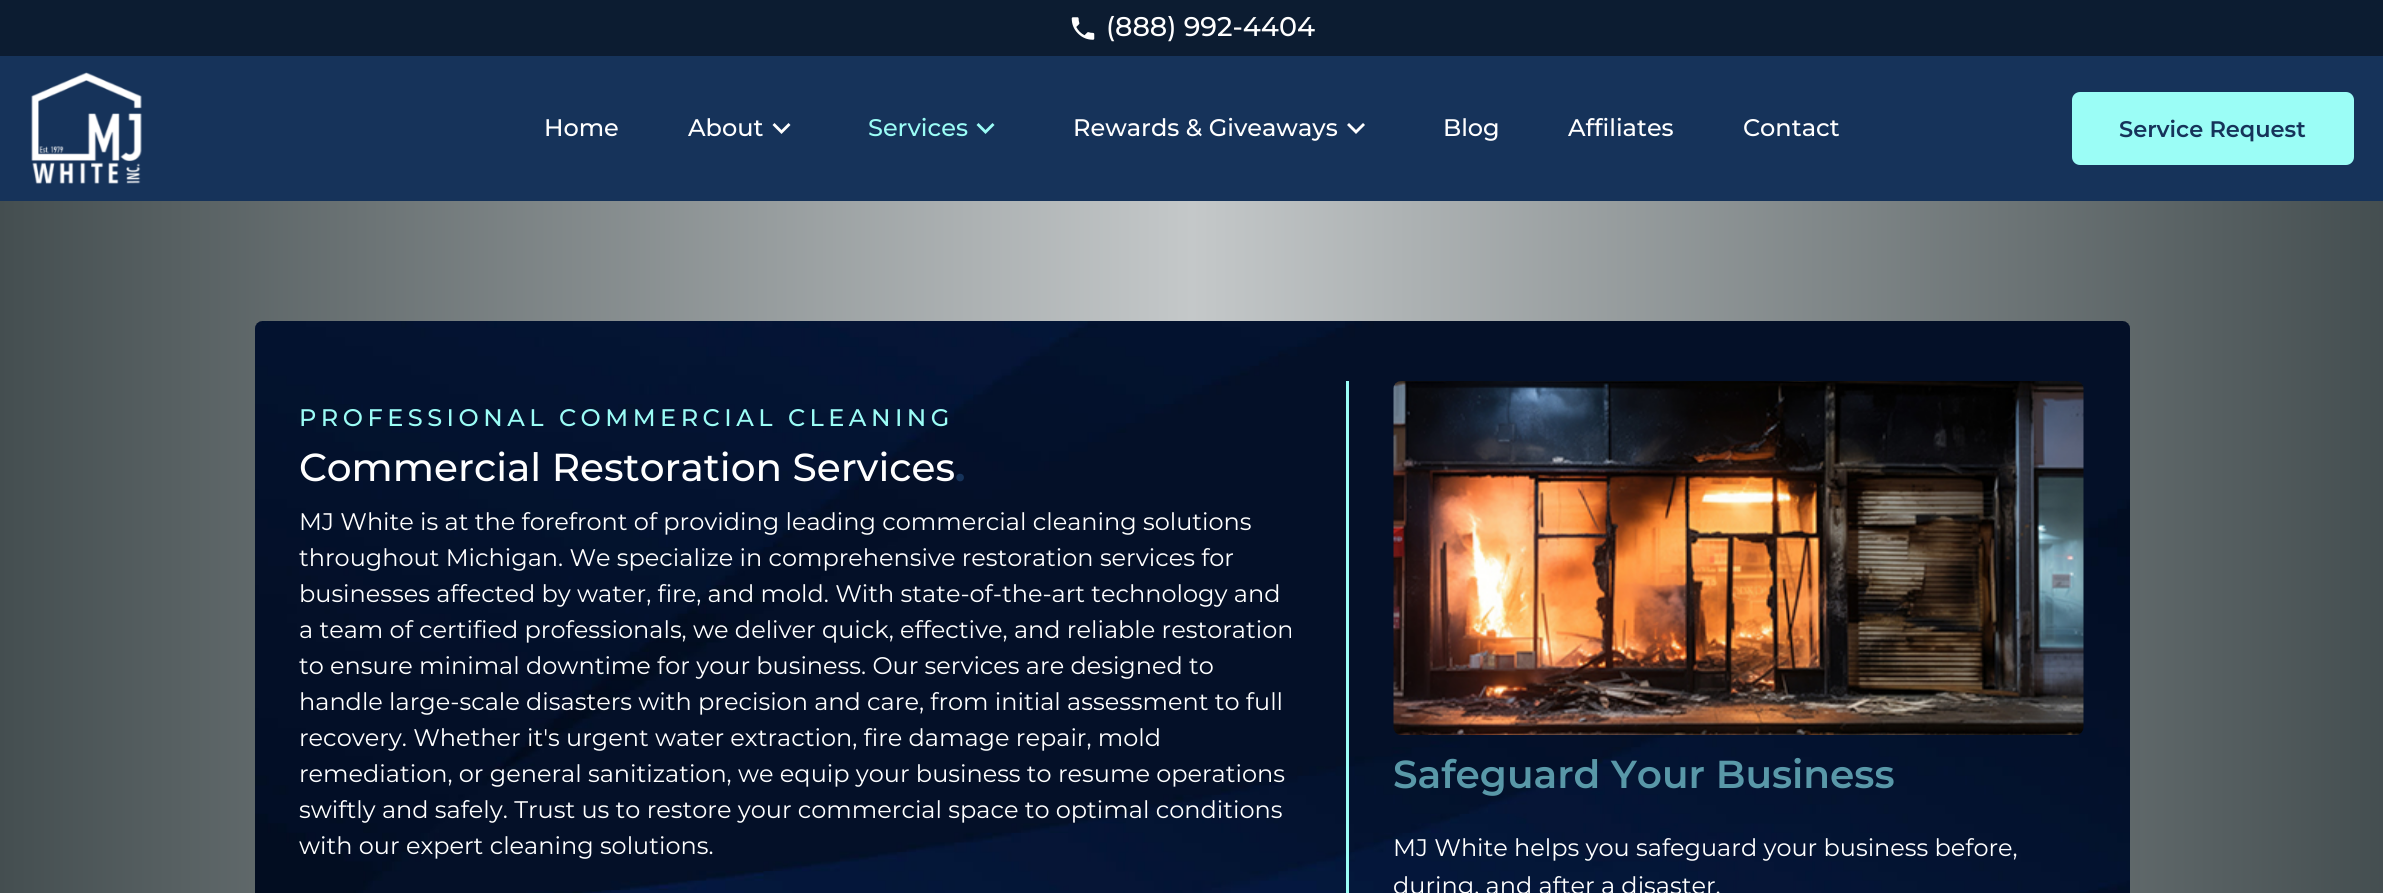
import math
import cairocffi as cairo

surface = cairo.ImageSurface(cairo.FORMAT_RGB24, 2383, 893)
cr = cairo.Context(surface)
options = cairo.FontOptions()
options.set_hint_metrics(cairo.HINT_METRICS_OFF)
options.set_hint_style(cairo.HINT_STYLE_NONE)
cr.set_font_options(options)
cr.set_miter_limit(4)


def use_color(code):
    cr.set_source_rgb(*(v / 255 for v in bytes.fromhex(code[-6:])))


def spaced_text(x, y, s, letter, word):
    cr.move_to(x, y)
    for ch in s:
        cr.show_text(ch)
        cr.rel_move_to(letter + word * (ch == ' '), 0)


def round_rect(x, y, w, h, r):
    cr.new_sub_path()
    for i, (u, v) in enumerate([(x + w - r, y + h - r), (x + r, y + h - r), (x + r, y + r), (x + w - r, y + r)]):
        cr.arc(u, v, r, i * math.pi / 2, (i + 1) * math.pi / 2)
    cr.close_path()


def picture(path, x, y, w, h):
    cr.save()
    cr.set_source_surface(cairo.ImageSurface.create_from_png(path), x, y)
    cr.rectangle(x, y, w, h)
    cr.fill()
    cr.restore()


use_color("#ffffff")
cr.paint()
use_color("#16335a")
cr.rectangle(0, 56, 2383, 145)
cr.fill()
use_color("#0c1c31")
cr.rectangle(0, 0, 2383, 56)
cr.fill()
picture("img1.png", 1071, 17, 24, 23)
cr.select_font_face("Montserrat Medium")
cr.set_font_size(27)
use_color("#ffffff")
cr.move_to(1106, 36)
cr.show_text("(888) 992-4404")
picture("img2.png", 31, 72, 111, 112)
cr.set_font_size(24)
cr.move_to(544, 136)
cr.show_text("Home")
cr.move_to(688, 136)
cr.show_text("About")
cr.new_path()
cr.move_to(781.5, 134)
cr.line_to(772.5, 125)
cr.line_to(774.5, 123)
cr.line_to(781.5, 130)
cr.line_to(788.5, 123)
cr.line_to(790.5, 125)
cr.close_path()
cr.fill()
use_color("#9bfdf6")
cr.move_to(868, 136)
cr.show_text("Services")
cr.new_path()
cr.move_to(985.5, 134)
cr.line_to(976.5, 125)
cr.line_to(978.5, 123)
cr.line_to(985.5, 130)
cr.line_to(992.5, 123)
cr.line_to(994.5, 125)
cr.close_path()
cr.fill()
use_color("#ffffff")
cr.move_to(1073, 136)
cr.show_text("Rewards & Giveaways")
cr.new_path()
cr.move_to(1356, 134)
cr.line_to(1347, 125)
cr.line_to(1349, 123)
cr.line_to(1356, 130)
cr.line_to(1363, 123)
cr.line_to(1365, 125)
cr.close_path()
cr.fill()
cr.move_to(1443, 136)
cr.show_text("Blog")
cr.move_to(1568, 136)
cr.show_text("Affiliates")
cr.move_to(1743, 136)
cr.show_text("Contact")
use_color("#9bfdf6")
round_rect(2072, 92, 282, 73, 8)
cr.fill()
cr.select_font_face("Montserrat SemiBold")
cr.set_font_size(22.5)
use_color("#16335a")
cr.move_to(2119, 137)
cr.show_text("Service Request")
gradient = cairo.LinearGradient(0, 462, 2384, 462)
gradient.add_color_stop_rgba(0, 0.267, 0.306, 0.314, 1)
gradient.add_color_stop_rgba(0.5, 0.769, 0.784, 0.788, 1)
gradient.add_color_stop_rgba(1, 0.267, 0.306, 0.314, 1)
cr.set_source(gradient)
cr.rectangle(0, 201, 2383, 692)
cr.fill()
picture("img3.png", 255, 321, 1875, 572)
use_color("#9bfdf6")
cr.rectangle(1346, 381, 3, 512)
cr.fill()
cr.select_font_face("Montserrat Medium")
cr.set_font_size(24)
spaced_text(299, 426, "PROFESSIONAL COMMERCIAL CLEANING", 4.5, 0)
cr.set_font_size(39)
use_color("#ffffff")
cr.move_to(299, 481)
cr.show_text("Commercial Restoration Services")
cr.select_font_face("Montserrat", cairo.FONT_SLANT_NORMAL, cairo.FONT_WEIGHT_BOLD)
use_color("#16335a")
cr.move_to(955, 481)
cr.show_text(".")
cr.select_font_face("Montserrat")
cr.set_font_size(24)
use_color("#ffffff")
cr.move_to(299, 530)
cr.show_text("MJ White is at the forefront of providing leading commercial cleaning solutions")
cr.move_to(299, 566)
cr.show_text("throughout Michigan. We specialize in comprehensive restoration services for")
cr.move_to(299, 602)
cr.show_text("businesses affected by water, fire, and mold. With state-of-the-art technology and")
cr.move_to(299, 638)
cr.show_text("a team of certified professionals, we deliver quick, effective, and reliable restoration")
cr.move_to(299, 674)
cr.show_text("to ensure minimal downtime for your business. Our services are designed to")
cr.move_to(299, 710)
cr.show_text("handle large-scale disasters with precision and care, from initial assessment to full")
cr.move_to(299, 746)
cr.show_text("recovery. Whether it's urgent water extraction, fire damage repair, mold")
cr.move_to(299, 782)
cr.show_text("remediation, or general sanitization, we equip your business to resume operations")
cr.move_to(299, 818)
cr.show_text("swiftly and safely. Trust us to restore your commercial space to optimal conditions")
cr.move_to(299, 854)
cr.show_text("with our expert cleaning solutions.")
picture("img4.png", 1393, 381, 691, 354)
cr.select_font_face("Montserrat SemiBold")
cr.set_font_size(39)
use_color("#5998a8")
cr.move_to(1393, 788)
cr.show_text("Safeguard Your Business")
cr.select_font_face("Montserrat")
cr.set_font_size(24)
use_color("#ffffff")
cr.move_to(1393, 856)
cr.show_text("MJ White helps you safeguard your business before,")
cr.move_to(1393, 894)
cr.show_text("during, and after a disaster.")
surface.write_to_png("result.png")
